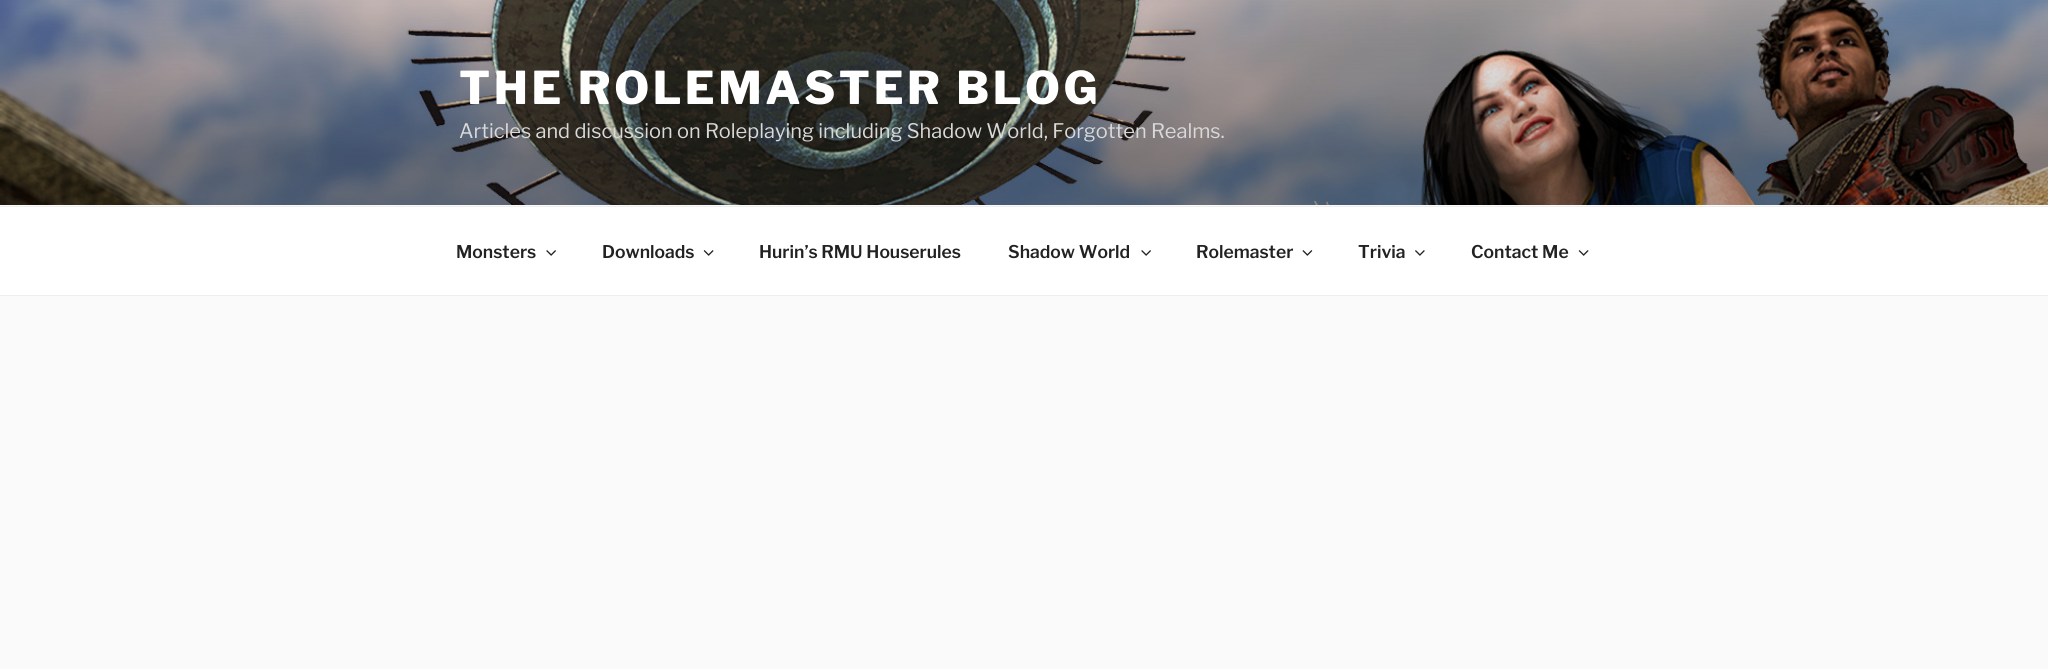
import math
import cairocffi as cairo

surface = cairo.ImageSurface(cairo.FORMAT_RGB24, 2048, 669)
cr = cairo.Context(surface)
options = cairo.FontOptions()
options.set_hint_metrics(cairo.HINT_METRICS_OFF)
options.set_hint_style(cairo.HINT_STYLE_NONE)
cr.set_font_options(options)
cr.set_miter_limit(4)


def use_color(code):
    cr.set_source_rgb(*(v / 255 for v in bytes.fromhex(code[-6:])))


def spaced_text(x, y, s, letter, word):
    cr.move_to(x, y)
    for ch in s:
        cr.show_text(ch)
        cr.rel_move_to(letter + word * (ch == ' '), 0)


def picture(path, x, y, w, h):
    cr.save()
    cr.set_source_surface(cairo.ImageSurface.create_from_png(path), x, y)
    cr.rectangle(x, y, w, h)
    cr.fill()
    cr.restore()


use_color("#fafafa")
cr.paint()
picture("img1.png", 0, 0, 2048, 205)
cr.select_font_face("Libre Franklin ExtraBold")
cr.set_font_size(45)
use_color("#ffffff")
spaced_text(459, 104, "THE ROLEMASTER BLOG", 3.6, 0)
cr.select_font_face("Libre Franklin")
cr.set_font_size(20)
use_color("#d9d9d9")
cr.move_to(459, 138)
cr.show_text("Articles and discussion on Roleplaying including Shadow World, Forgotten Realms.")
use_color("#ffffff")
cr.rectangle(0, 207, 2048, 88)
cr.fill()
use_color("#eeeeee")
cr.rectangle(0, 206, 2048, 1)
cr.fill()
cr.rectangle(0, 295, 2048, 1)
cr.fill()
cr.select_font_face("Libre Franklin SemiBold")
cr.set_font_size(17.5)
use_color("#222222")
cr.move_to(456, 258)
cr.show_text("Monsters")
picture("img2.png", 546, 250, 10, 6)
cr.move_to(602, 258)
cr.show_text("Downloads")
picture("img3.png", 703, 250, 11, 6)
cr.move_to(759, 258)
cr.show_text("Hurin’s RMU Houserules")
cr.move_to(1008, 258)
cr.show_text("Shadow World")
picture("img2.png", 1141, 250, 10, 6)
cr.move_to(1196, 258)
cr.show_text("Rolemaster")
picture("img4.png", 1302, 250, 11, 6)
cr.move_to(1358, 258)
cr.show_text("Trivia")
picture("img5.png", 1415, 250, 10, 6)
cr.move_to(1471, 258)
cr.show_text("Contact Me")
picture("img3.png", 1578, 250, 11, 6)
surface.write_to_png("result.png")
